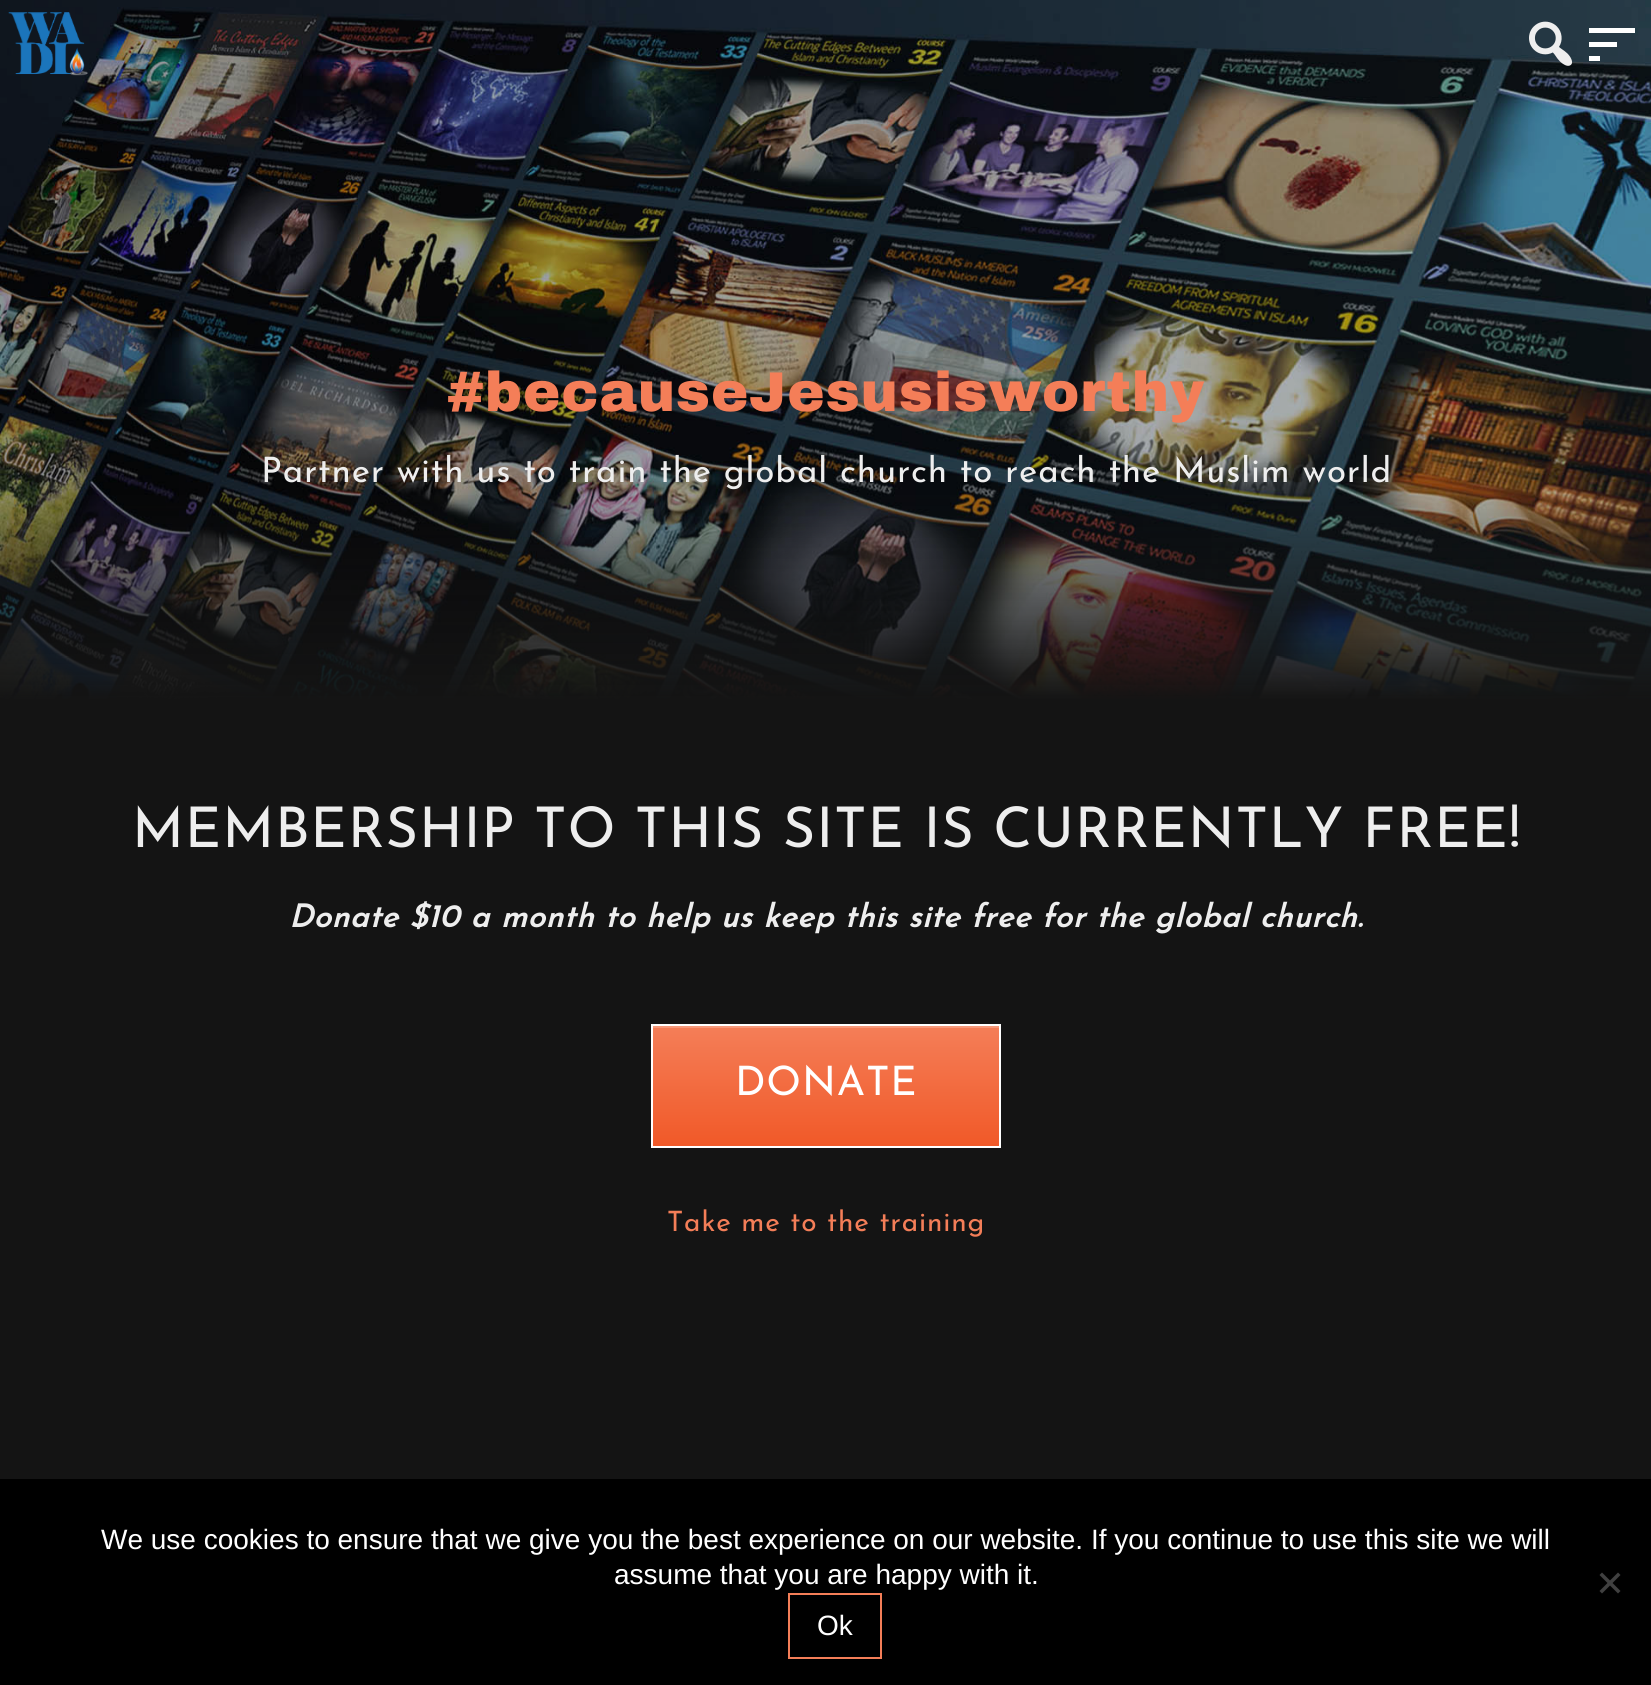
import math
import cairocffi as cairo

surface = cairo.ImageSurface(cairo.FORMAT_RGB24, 1651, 1685)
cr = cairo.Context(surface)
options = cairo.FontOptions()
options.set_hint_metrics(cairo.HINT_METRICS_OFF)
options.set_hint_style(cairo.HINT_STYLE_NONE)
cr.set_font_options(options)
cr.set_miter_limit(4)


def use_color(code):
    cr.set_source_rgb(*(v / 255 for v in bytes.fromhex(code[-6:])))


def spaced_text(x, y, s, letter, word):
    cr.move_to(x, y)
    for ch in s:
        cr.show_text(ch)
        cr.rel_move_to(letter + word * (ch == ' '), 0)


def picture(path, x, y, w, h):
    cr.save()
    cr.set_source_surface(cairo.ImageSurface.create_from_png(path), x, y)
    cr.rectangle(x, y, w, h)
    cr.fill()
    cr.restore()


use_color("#141414")
cr.paint()
picture("img3.png", 0, 0, 1651, 699)
gradient = cairo.LinearGradient(0, 350, 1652, 350)
gradient.add_color_stop_rgba(0, 0, 0, 0, 0.2)
gradient.add_color_stop_rgba(1, 0, 0, 0, 0.1)
cr.set_source(gradient)
cr.rectangle(0, 0, 1651, 699)
cr.fill()
picture("img1.png", 8, 12, 80, 64)
picture("img2.png", 1529, 21, 44, 45)
use_color("#ffffff")
cr.rectangle(1589, 42, 28, 5)
cr.fill()
cr.rectangle(1589, 28, 46, 5)
cr.fill()
cr.rectangle(1589, 56, 11, 5)
cr.fill()
cr.select_font_face("Archivo Black Black")
cr.set_font_size(56)
use_color("#f47e58")
spaced_text(447, 411, "#becauseJesusisworthy", 0.85, 0)
cr.select_font_face("Josefin Sans Thin")
cr.set_font_size(35)
use_color("#eeeeee")
spaced_text(261, 482, "Partner with us to train the global church to reach the Muslim world", 0.85, 0)
gradient = cairo.LinearGradient(826, 700, 826, 490)
gradient.add_color_stop_rgba(0, 0.078, 0.078, 0.078, 1)
gradient.add_color_stop_rgba(1, 0.078, 0.078, 0.078, 0)
cr.set_source(gradient)
cr.rectangle(0, 495, 1651, 204)
cr.fill()
cr.set_font_size(56)
use_color("#eeeeee")
spaced_text(132, 847, "MEMBERSHIP TO THIS SITE IS CURRENTLY FREE!", 0.85, 0)
cr.select_font_face("Josefin Sans", cairo.FONT_SLANT_ITALIC, cairo.FONT_WEIGHT_BOLD)
cr.set_font_size(31.5)
spaced_text(289, 927, "Donate $10 a month to help us keep this site free for the global church.", 0.85, 0)
gradient = cairo.LinearGradient(653, 1146, 653, 1026)
gradient.add_color_stop_rgba(0, 0.945, 0.349, 0.157, 1)
gradient.add_color_stop_rgba(1, 0.957, 0.494, 0.345, 1)
cr.set_source(gradient)
cr.rectangle(653, 1028, 346, 118)
cr.fill()
use_color("#f69879")
cr.rectangle(653, 1026, 346, 2)
cr.fill()
cr.rectangle(652, 1025, 348, 122)
use_color("#ffffff")
cr.stroke()
cr.select_font_face("Josefin Sans Thin")
cr.set_font_size(40.5)
spaced_text(735, 1095, "DONATE", 0.85, 0)
cr.set_font_size(28)
use_color("#f47e58")
spaced_text(667, 1231, "Take me to the training", 0.85, 0)
use_color("#000000")
cr.rectangle(0, 1479, 1651, 206)
cr.fill()
cr.select_font_face("Liberation Sans")
use_color("#ffffff")
cr.move_to(101, 1549)
cr.show_text("We use cookies to ensure that we give you the best experience on our website. If you continue to use this site we will")
cr.move_to(614, 1584)
cr.show_text("assume that you are happy with it.")
use_color("#404040")
cr.new_path()
cr.move_to(1618, 1572.5)
cr.line_to(1620.5, 1575)
cr.line_to(1602, 1593.5)
cr.line_to(1599.5, 1591)
cr.close_path()
cr.fill()
cr.new_path()
cr.move_to(1599.5, 1575)
cr.line_to(1602, 1572.5)
cr.line_to(1620.5, 1591)
cr.line_to(1618, 1593.5)
cr.close_path()
cr.fill()
cr.rectangle(789, 1594, 92, 64)
use_color("#f47e58")
cr.stroke()
use_color("#ffffff")
cr.move_to(817, 1635)
cr.show_text("Ok")
surface.write_to_png("result.png")
